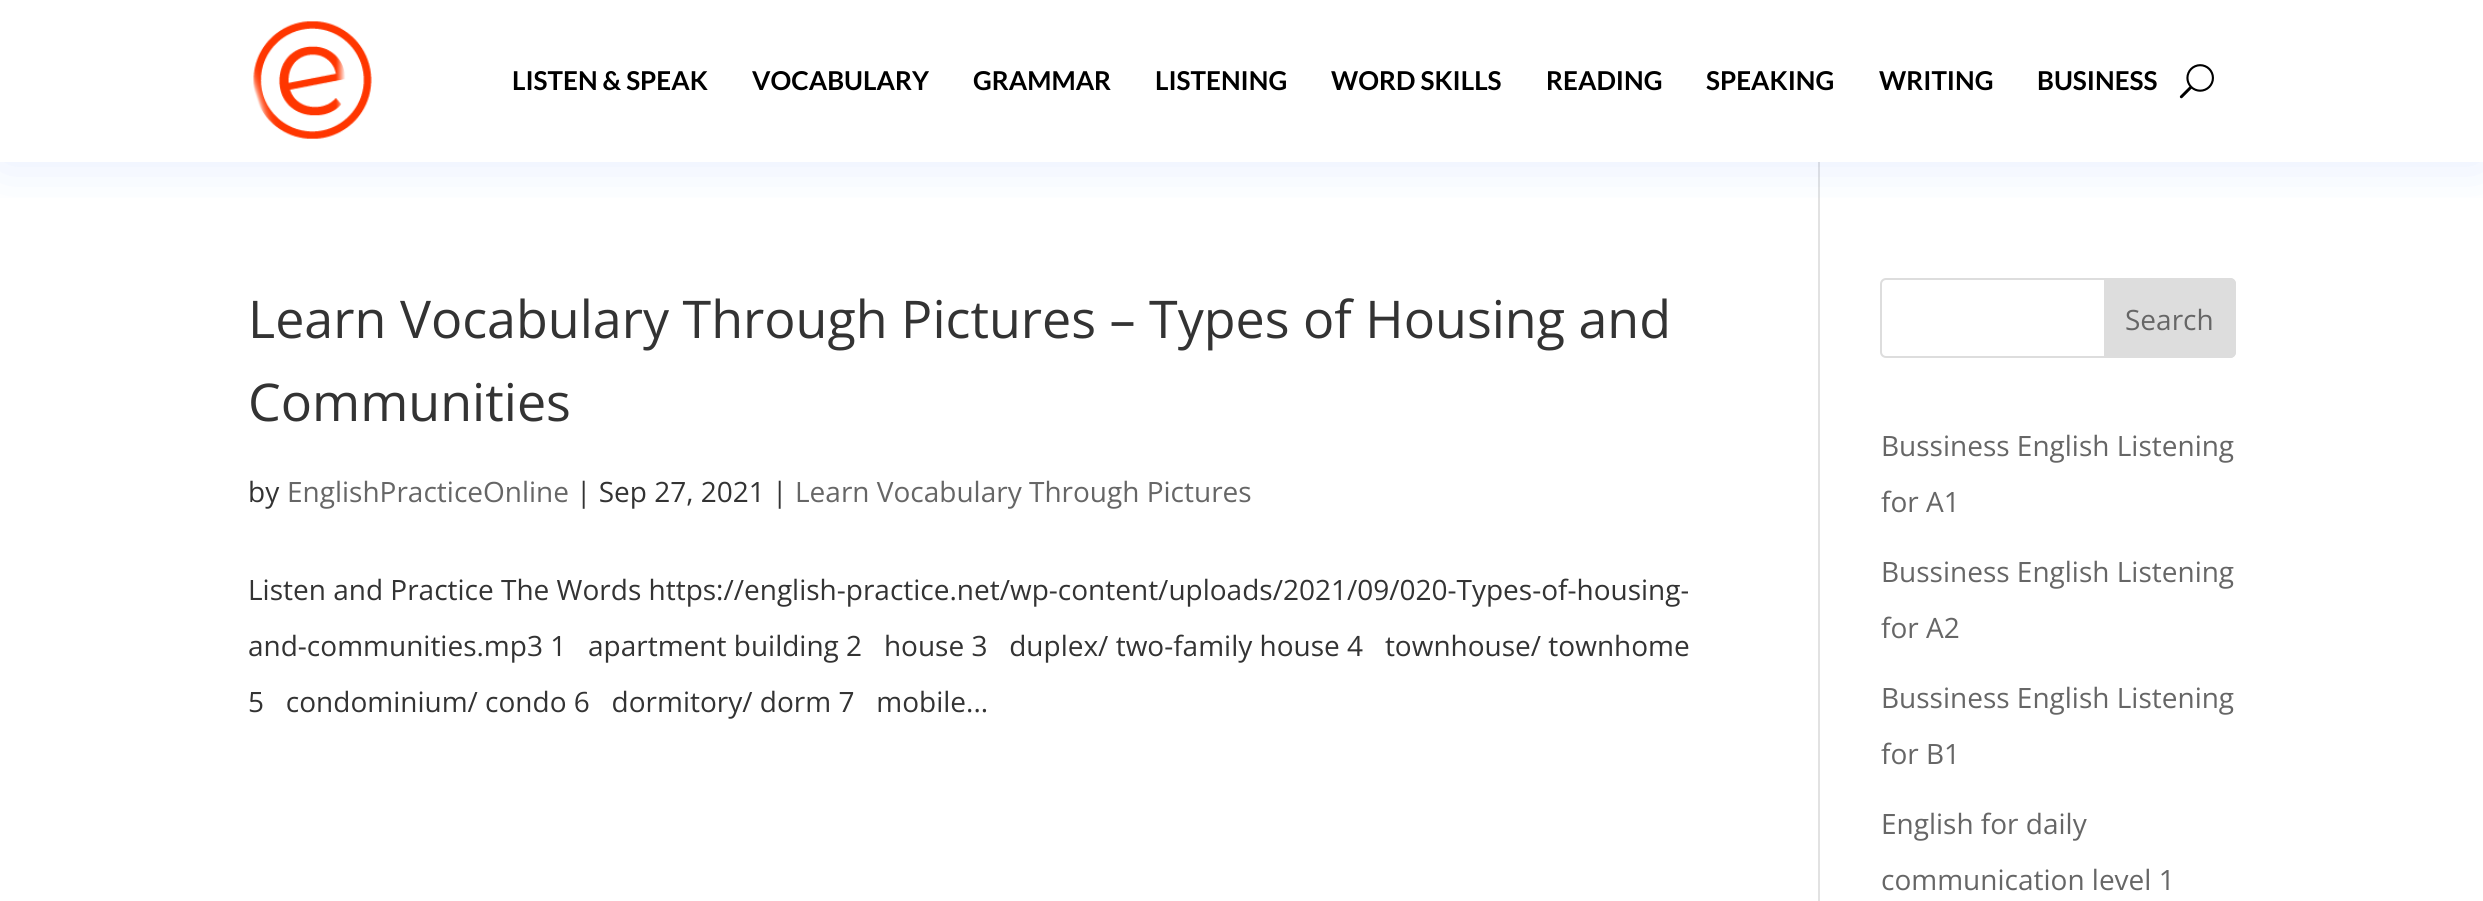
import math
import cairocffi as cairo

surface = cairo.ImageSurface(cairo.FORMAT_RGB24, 2483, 901)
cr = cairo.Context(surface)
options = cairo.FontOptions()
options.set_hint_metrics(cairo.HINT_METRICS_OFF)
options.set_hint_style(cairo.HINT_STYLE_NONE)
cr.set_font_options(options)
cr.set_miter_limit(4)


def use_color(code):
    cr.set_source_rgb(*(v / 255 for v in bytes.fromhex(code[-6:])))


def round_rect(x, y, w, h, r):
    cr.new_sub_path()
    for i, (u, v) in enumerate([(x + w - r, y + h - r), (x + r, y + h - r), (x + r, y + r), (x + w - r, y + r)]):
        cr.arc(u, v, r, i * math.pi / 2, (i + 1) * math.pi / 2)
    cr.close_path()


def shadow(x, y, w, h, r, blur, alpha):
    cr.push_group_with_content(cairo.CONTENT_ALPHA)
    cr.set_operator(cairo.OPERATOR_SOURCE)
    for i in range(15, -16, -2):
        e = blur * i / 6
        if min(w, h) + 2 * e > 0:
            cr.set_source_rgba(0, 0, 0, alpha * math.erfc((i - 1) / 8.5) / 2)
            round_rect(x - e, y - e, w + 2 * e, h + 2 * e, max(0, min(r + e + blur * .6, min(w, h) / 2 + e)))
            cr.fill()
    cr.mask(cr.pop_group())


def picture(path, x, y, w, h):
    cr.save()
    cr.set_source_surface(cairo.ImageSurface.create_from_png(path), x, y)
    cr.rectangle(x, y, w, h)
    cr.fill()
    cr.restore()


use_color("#ffffff")
cr.paint()
use_color("#e2e2e2")
cr.rectangle(1818, 162, 2, 739)
cr.fill()
cr.save()
cr.rectangle(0, 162, 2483, 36)
cr.clip()
use_color("#6797ff")
shadow(0, 0, 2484, 162, 0, 30, 0.17)
cr.restore()
picture("img1.png", 253, 21, 119, 118)
cr.select_font_face("Lato", cairo.FONT_SLANT_NORMAL, cairo.FONT_WEIGHT_BOLD)
cr.set_font_size(26)
use_color("#000000")
cr.move_to(512, 90)
cr.show_text("LISTEN & SPEAK")
cr.move_to(752, 90)
cr.show_text("VOCABULARY")
cr.move_to(973, 90)
cr.show_text("GRAMMAR")
cr.move_to(1155, 90)
cr.show_text("LISTENING")
cr.move_to(1331, 90)
cr.show_text("WORD SKILLS")
cr.move_to(1546, 90)
cr.show_text("READING")
cr.move_to(1706, 90)
cr.show_text("SPEAKING")
cr.move_to(1879, 90)
cr.show_text("WRITING")
cr.move_to(2037, 90)
cr.show_text("BUSINESS")
picture("img2.png", 2179, 64, 35, 35)
cr.select_font_face("Open Sans")
cr.set_font_size(52)
use_color("#333333")
cr.move_to(248, 338)
cr.show_text("Learn Vocabulary Through Pictures – Types of Housing and")
cr.move_to(248, 421)
cr.show_text("Communities")
cr.set_font_size(28)
cr.move_to(248, 502)
cr.show_text("by")
use_color("#666666")
cr.move_to(287, 502)
cr.show_text("EnglishPracticeOnline")
use_color("#333333")
cr.move_to(576, 502)
cr.show_text("| Sep 27, 2021 |")
use_color("#666666")
cr.move_to(795, 502)
cr.show_text("Learn Vocabulary Through Pictures")
use_color("#333333")
cr.move_to(248, 600)
cr.show_text("Listen and Practice The Words https://english-practice.net/wp-content/uploads/2021/09/020-Types-of-housing-")
cr.move_to(248, 656)
cr.show_text("and-communities.mp3 1   apartment building 2   house 3   duplex/ two-family house 4   townhouse/ townhome")
cr.move_to(248, 712)
cr.show_text("5   condominium/ condo 6   dormitory/ dorm 7   mobile...")
round_rect(1881, 279, 354, 78, 5)
use_color("#dddddd")
cr.stroke()
cr.new_path()
cr.move_to(2105, 279)
cr.line_to(2230, 279)
cr.curve_to(2233, 279, 2235, 281, 2235, 284)
cr.line_to(2235, 352)
cr.curve_to(2235, 355, 2233, 357, 2230, 357)
cr.line_to(2105, 357)
cr.close_path()
cr.fill_preserve()
cr.stroke()
use_color("#666666")
cr.move_to(2125, 330)
cr.show_text("Search")
cr.move_to(1881, 456)
cr.show_text("Bussiness English Listening")
cr.move_to(1881, 512)
cr.show_text("for A1")
cr.move_to(1881, 582)
cr.show_text("Bussiness English Listening")
cr.move_to(1881, 638)
cr.show_text("for A2")
cr.move_to(1881, 708)
cr.show_text("Bussiness English Listening")
cr.move_to(1881, 764)
cr.show_text("for B1")
cr.move_to(1881, 834)
cr.show_text("English for daily")
cr.move_to(1881, 890)
cr.show_text("communication level 1")
surface.write_to_png("result.png")
